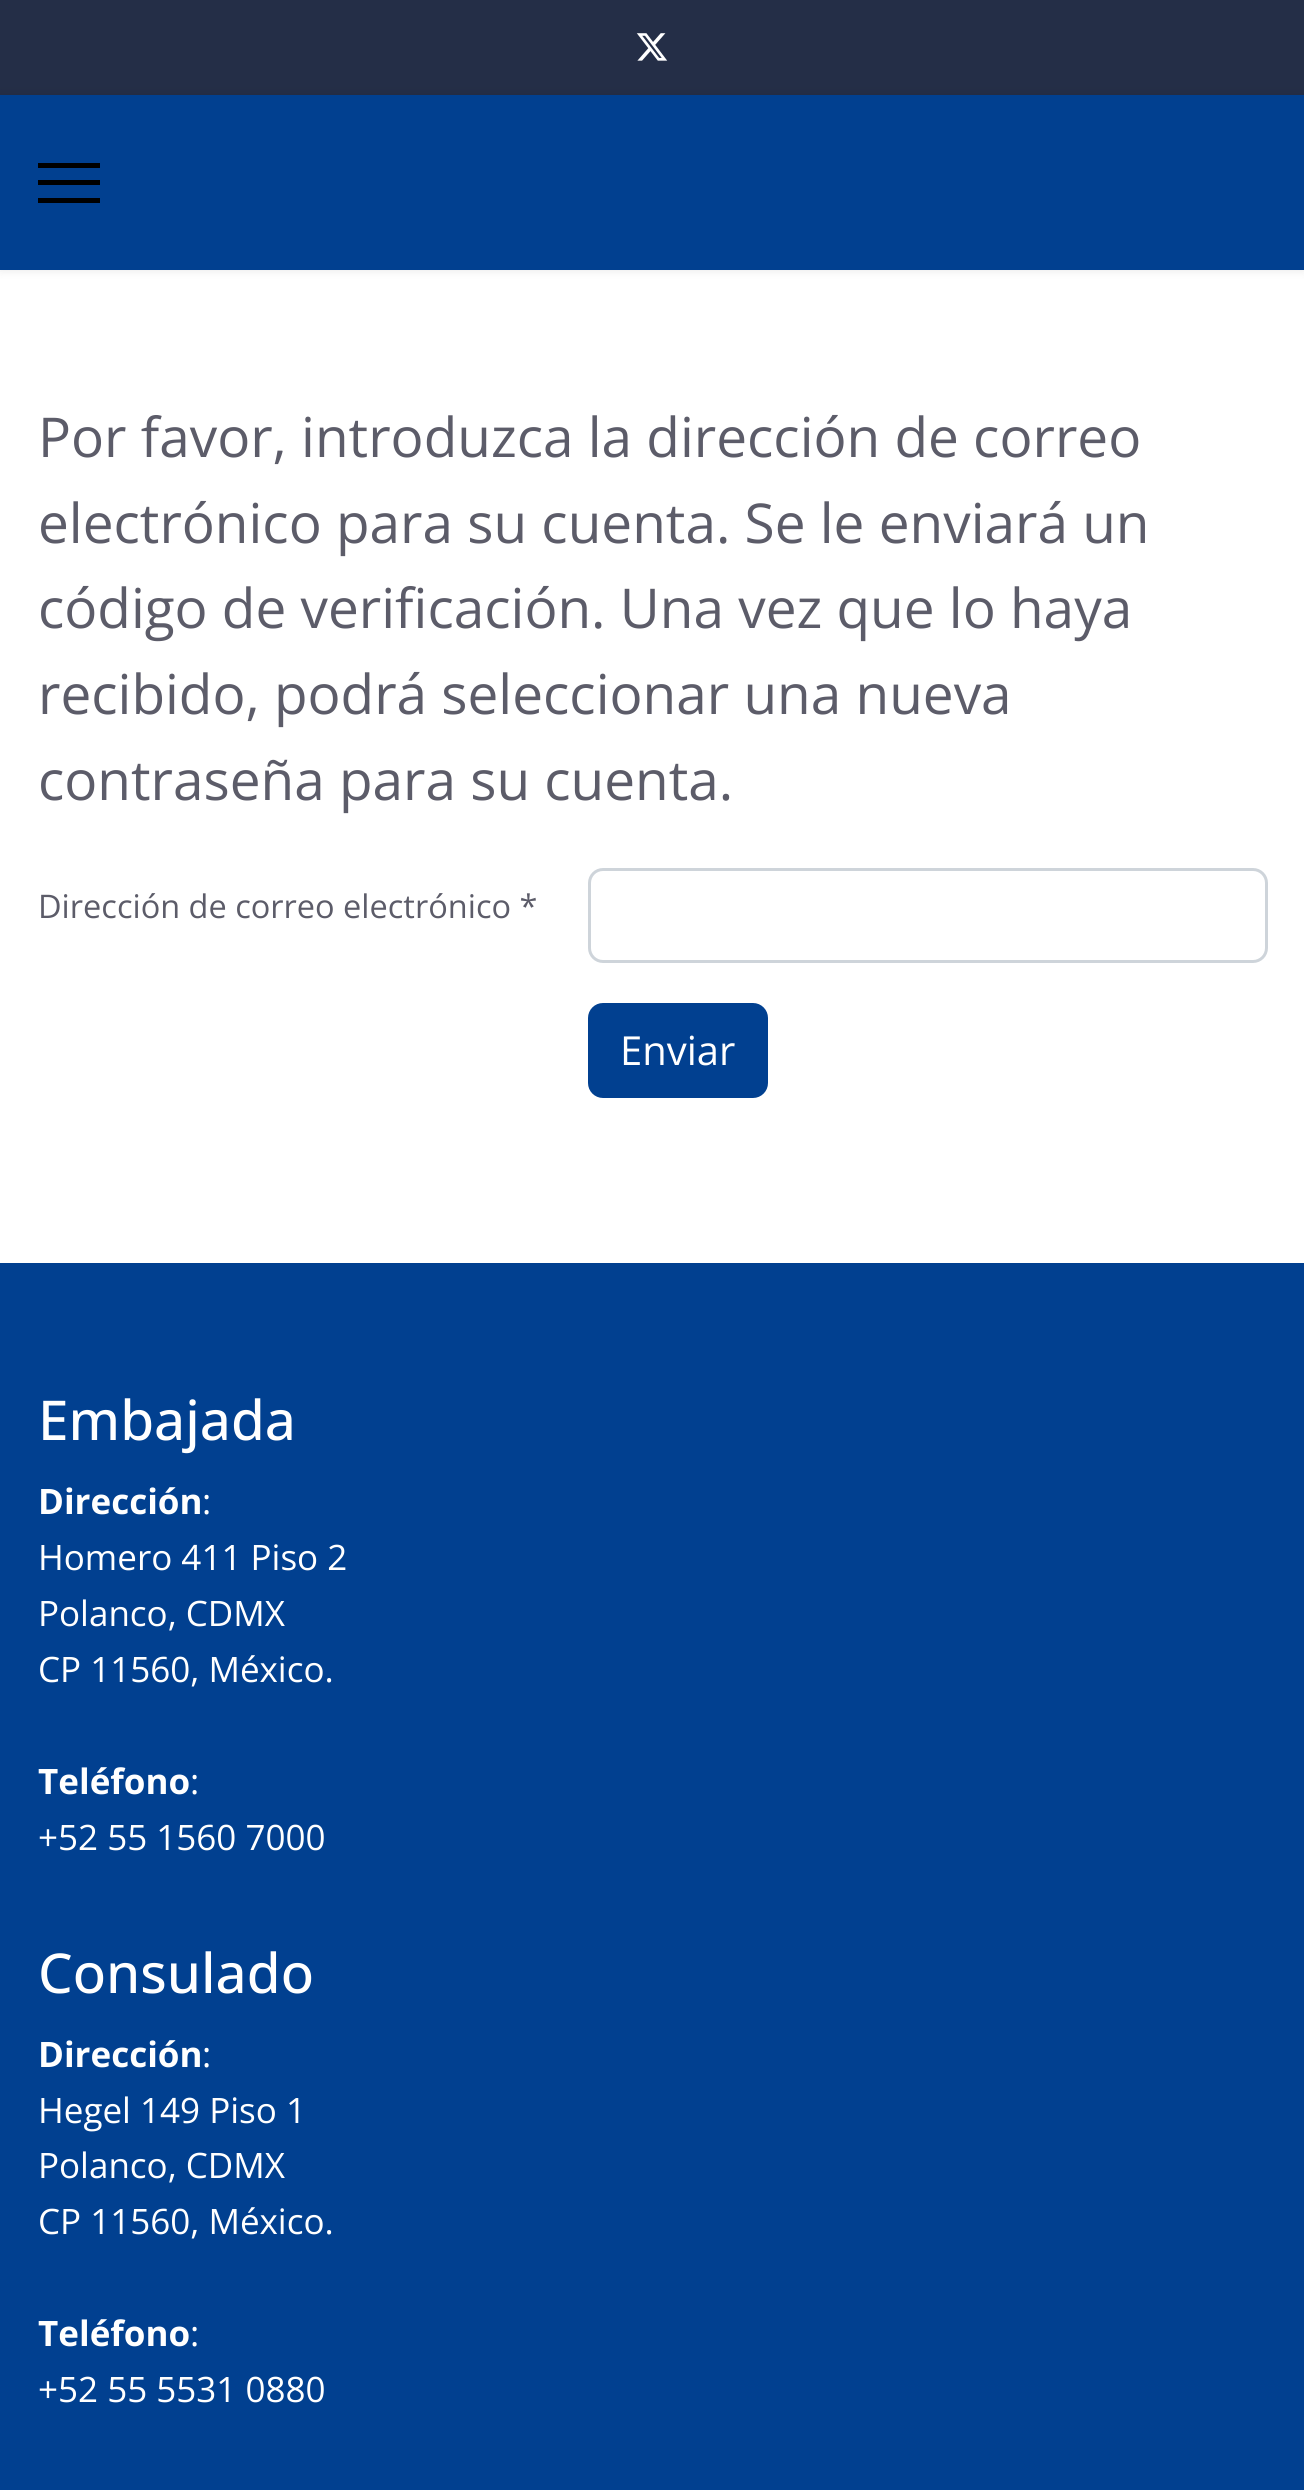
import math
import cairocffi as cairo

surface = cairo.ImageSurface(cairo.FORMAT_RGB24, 1304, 2490)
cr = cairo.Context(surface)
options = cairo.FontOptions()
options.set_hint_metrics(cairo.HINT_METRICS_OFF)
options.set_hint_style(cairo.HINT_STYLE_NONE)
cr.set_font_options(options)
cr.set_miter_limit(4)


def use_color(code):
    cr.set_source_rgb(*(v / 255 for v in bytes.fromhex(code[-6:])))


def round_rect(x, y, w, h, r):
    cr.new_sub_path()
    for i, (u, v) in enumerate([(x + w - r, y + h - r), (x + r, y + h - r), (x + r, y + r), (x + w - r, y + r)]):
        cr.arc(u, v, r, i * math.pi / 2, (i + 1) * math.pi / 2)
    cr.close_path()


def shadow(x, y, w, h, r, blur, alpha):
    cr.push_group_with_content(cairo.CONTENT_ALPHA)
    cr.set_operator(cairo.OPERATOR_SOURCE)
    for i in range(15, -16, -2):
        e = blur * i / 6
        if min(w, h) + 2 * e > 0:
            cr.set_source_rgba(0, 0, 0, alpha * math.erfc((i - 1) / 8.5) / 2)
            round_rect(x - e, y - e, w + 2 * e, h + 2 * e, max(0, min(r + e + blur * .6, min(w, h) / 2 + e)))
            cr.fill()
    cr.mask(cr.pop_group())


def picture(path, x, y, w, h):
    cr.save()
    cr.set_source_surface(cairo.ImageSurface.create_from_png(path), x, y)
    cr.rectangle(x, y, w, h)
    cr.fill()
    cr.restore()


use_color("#ffffff")
cr.paint()
use_color("#242e47")
cr.rectangle(0, 0, 1304, 95)
cr.fill()
picture("img1.png", 636, 33, 32, 28)
use_color("#000000")
shadow(0, 95, 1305, 175, 0, 5, 0.1)
use_color("#014090")
cr.rectangle(0, 95, 1304, 175)
cr.fill()
use_color("#000000")
cr.rectangle(38, 163, 62, 5)
cr.fill()
cr.rectangle(38, 180, 62, 5)
cr.fill()
cr.rectangle(38, 198, 62, 5)
cr.fill()
cr.select_font_face("Open Sans")
cr.set_font_size(54.9)
use_color("#5c5c69")
cr.move_to(38, 457)
cr.show_text("Por favor, introduzca la dirección de correo")
cr.move_to(38, 543)
cr.show_text("electrónico para su cuenta. Se le enviará un")
cr.move_to(38, 628)
cr.show_text("código de verificación. Una vez que lo haya")
cr.move_to(38, 714)
cr.show_text("recibido, podrá seleccionar una nueva")
cr.move_to(38, 800)
cr.show_text("contraseña para su cuenta.")
cr.set_font_size(32.5)
cr.move_to(38, 918)
cr.show_text("Dirección de correo electrónico *")
round_rect(589.5, 869.5, 677, 92, 13.5)
use_color("#ced4da")
cr.set_line_width(3)
cr.stroke()
use_color("#014090")
round_rect(589.5, 1004.5, 177, 92, 13.5)
cr.fill_preserve()
cr.stroke()
cr.set_font_size(40)
use_color("#ffffff")
cr.move_to(620, 1065)
cr.show_text("Enviar")
use_color("#014090")
cr.rectangle(0, 1263, 1304, 1227)
cr.fill()
cr.select_font_face("Open Sans Medium")
cr.set_font_size(54.9)
use_color("#ffffff")
cr.move_to(38, 1440)
cr.show_text("Embajada")
cr.select_font_face("Open Sans", cairo.FONT_SLANT_NORMAL, cairo.FONT_WEIGHT_BOLD)
cr.set_font_size(35)
cr.move_to(38, 1514)
cr.show_text("Dirección")
cr.select_font_face("Open Sans")
cr.move_to(202, 1514)
cr.show_text(":")
cr.move_to(38, 1570)
cr.show_text("Homero 411 Piso 2")
cr.move_to(38, 1626)
cr.show_text("Polanco, CDMX")
cr.move_to(38, 1682)
cr.show_text("CP 11560, México.")
cr.select_font_face("Open Sans", cairo.FONT_SLANT_NORMAL, cairo.FONT_WEIGHT_BOLD)
cr.move_to(38, 1794)
cr.show_text("Teléfono")
cr.select_font_face("Open Sans")
cr.move_to(190, 1794)
cr.show_text(":")
cr.move_to(38, 1850)
cr.show_text("+52 55 1560 7000")
cr.select_font_face("Open Sans Medium")
cr.set_font_size(54.9)
cr.move_to(38, 1993)
cr.show_text("Consulado")
cr.select_font_face("Open Sans", cairo.FONT_SLANT_NORMAL, cairo.FONT_WEIGHT_BOLD)
cr.set_font_size(35)
cr.move_to(38, 2067)
cr.show_text("Dirección")
cr.select_font_face("Open Sans")
cr.move_to(202, 2067)
cr.show_text(":")
cr.move_to(38, 2123)
cr.show_text("Hegel 149 Piso 1")
cr.move_to(38, 2178)
cr.show_text("Polanco, CDMX")
cr.move_to(38, 2234)
cr.show_text("CP 11560, México.")
cr.select_font_face("Open Sans", cairo.FONT_SLANT_NORMAL, cairo.FONT_WEIGHT_BOLD)
cr.move_to(38, 2346)
cr.show_text("Teléfono")
cr.select_font_face("Open Sans")
cr.move_to(190, 2346)
cr.show_text(":")
cr.move_to(38, 2402)
cr.show_text("+52 55 5531 0880")
surface.write_to_png("result.png")
